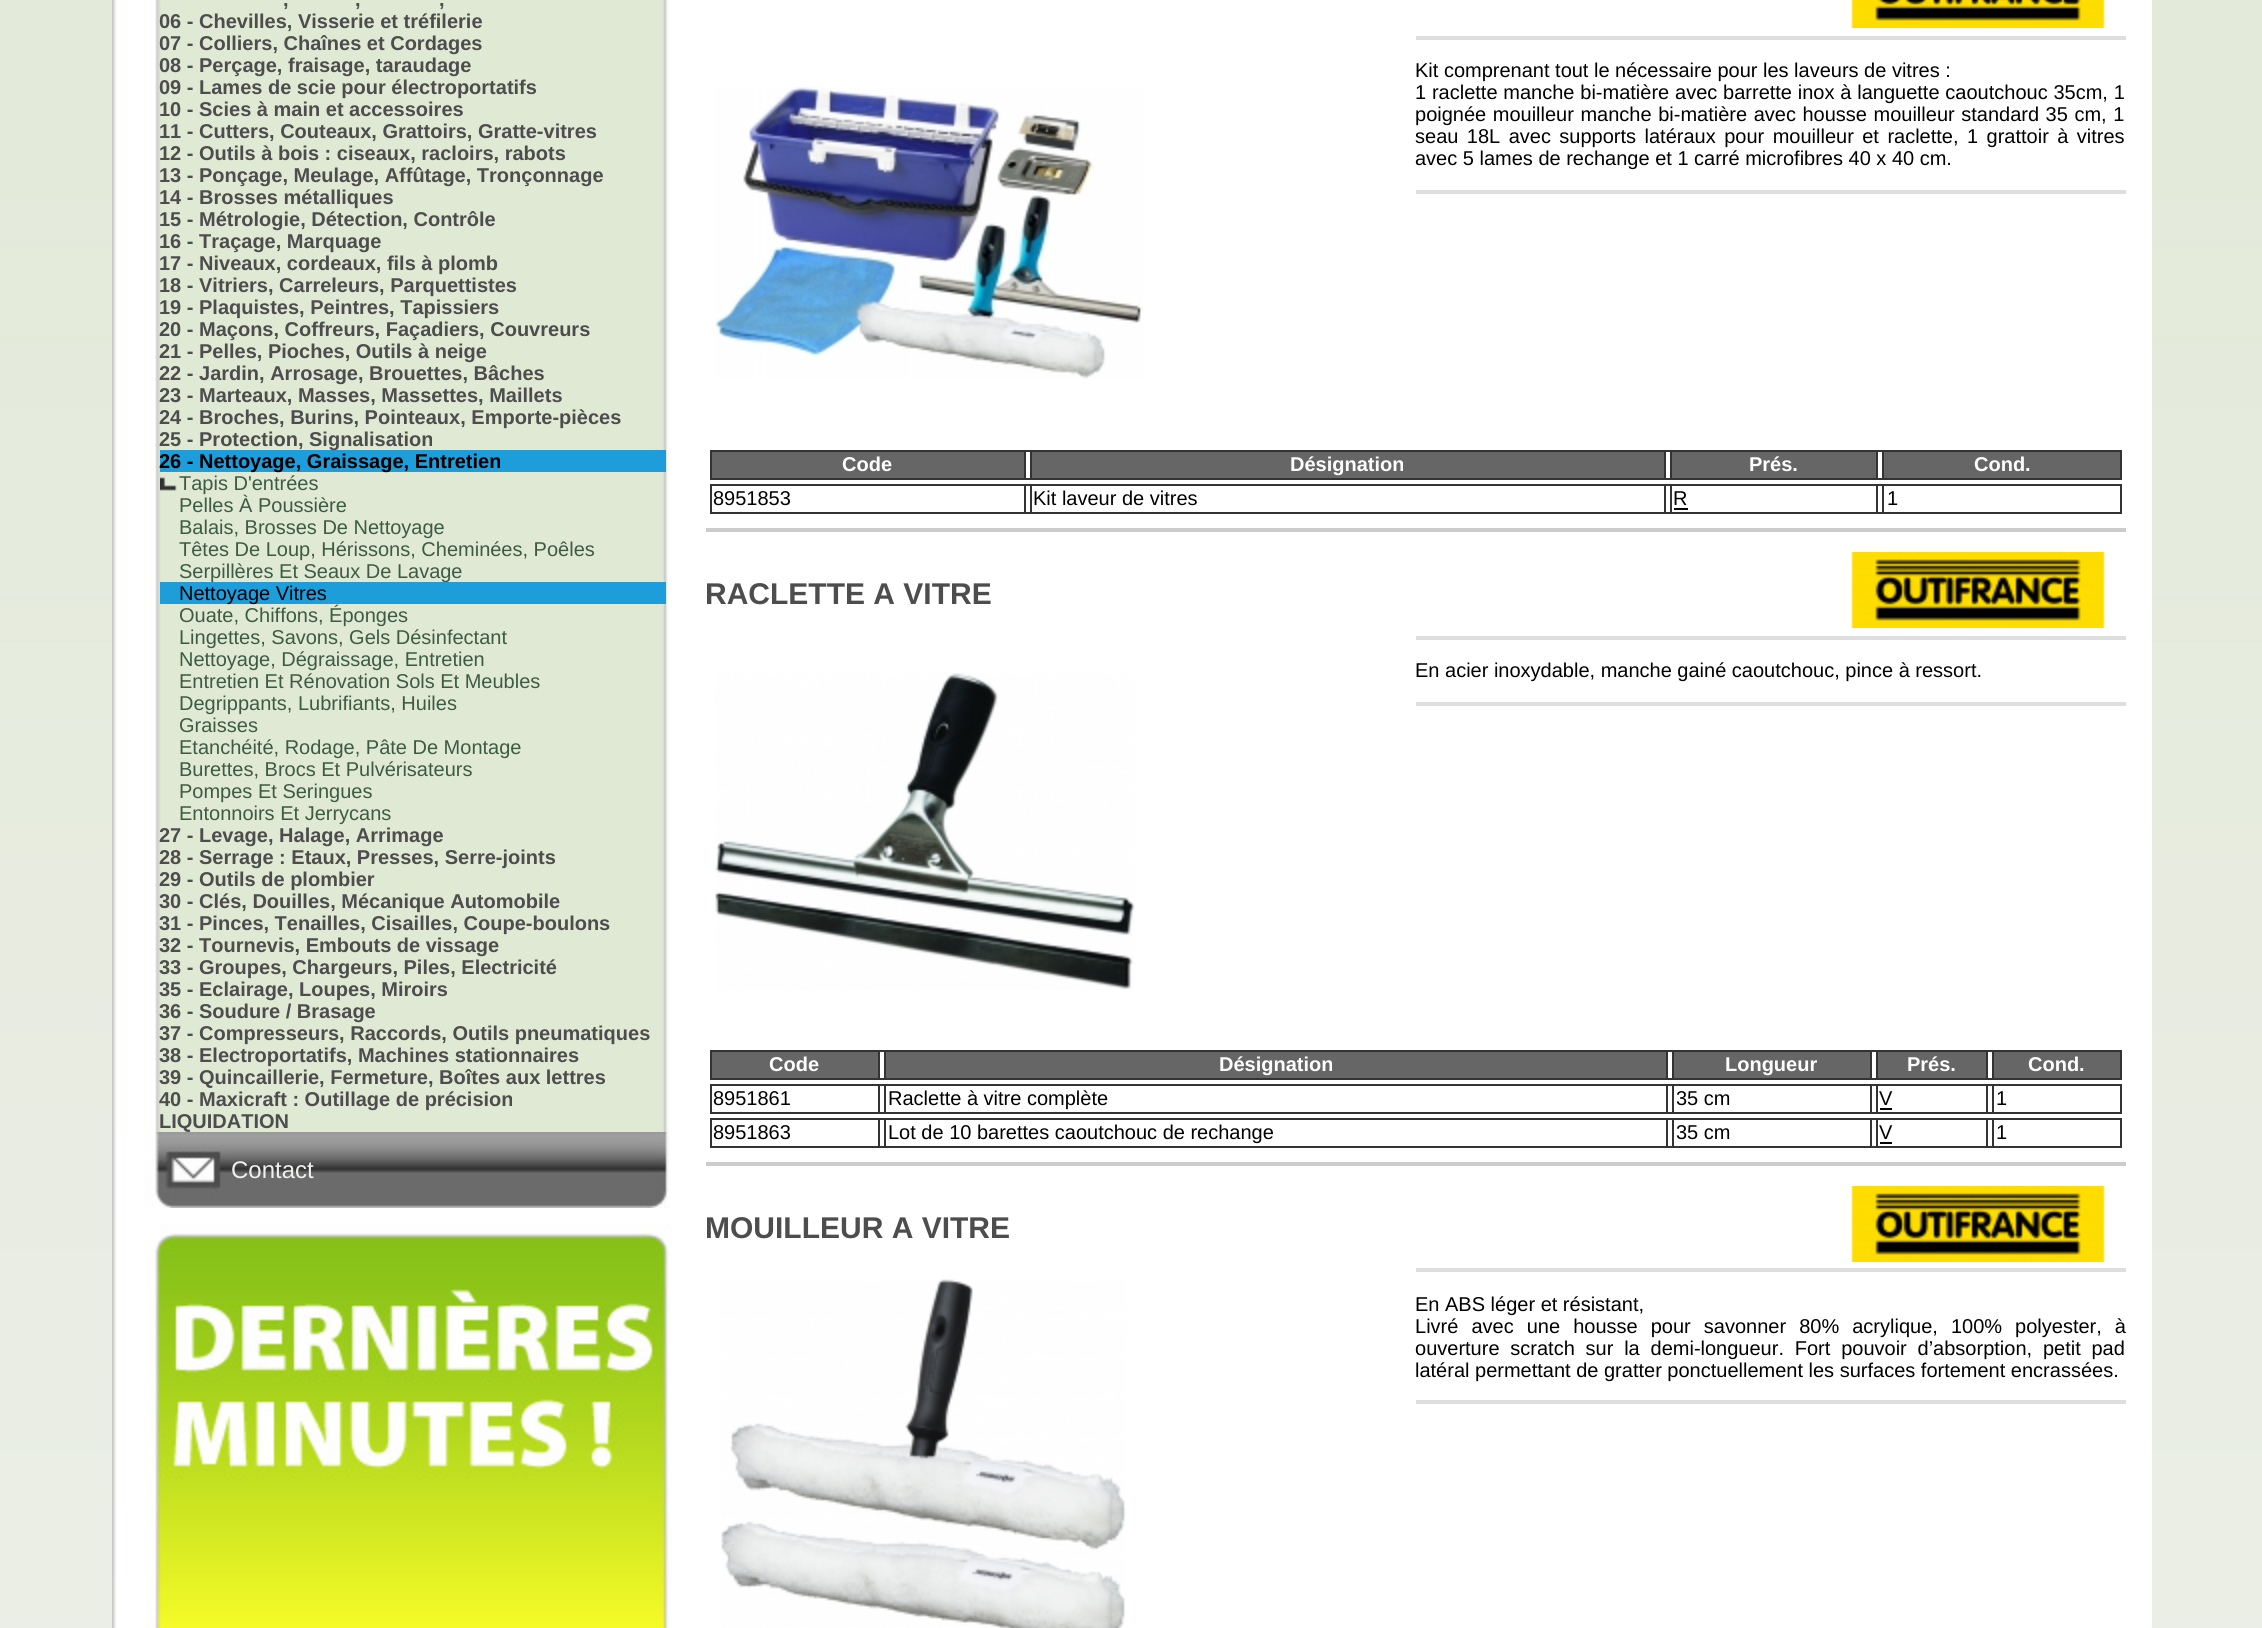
import math
import cairocffi as cairo

surface = cairo.ImageSurface(cairo.FORMAT_RGB24, 2262, 1628)
cr = cairo.Context(surface)
options = cairo.FontOptions()
options.set_hint_metrics(cairo.HINT_METRICS_OFF)
options.set_hint_style(cairo.HINT_STYLE_NONE)
cr.set_font_options(options)
cr.set_miter_limit(4)


def use_color(code):
    cr.set_source_rgb(*(v / 255 for v in bytes.fromhex(code[-6:])))


def spaced_text(x, y, s, letter, word):
    cr.move_to(x, y)
    for ch in s:
        cr.show_text(ch)
        cr.rel_move_to(letter + word * (ch == ' '), 0)


def picture(path, x, y, w, h):
    cr.save()
    cr.set_source_surface(cairo.ImageSurface.create_from_png(path), x, y)
    cr.rectangle(x, y, w, h)
    cr.fill()
    cr.restore()


use_color("#ffffff")
cr.paint()
picture("img1.png", 0, 0, 2262, 1628)
use_color("#ffffff")
cr.rectangle(669, 0, 1483, 1628)
cr.fill()
picture("img2.png", 112, 0, 557, 1132)
cr.select_font_face("Liberation Sans", cairo.FONT_SLANT_NORMAL, cairo.FONT_WEIGHT_BOLD)
cr.set_font_size(20)
use_color("#4d4d4d")
cr.move_to(283, 6)
cr.show_text(",")
cr.move_to(355, 6)
cr.show_text(",")
cr.move_to(439, 6)
cr.show_text(",")
cr.move_to(159, 28)
cr.show_text("06 - Chevilles, Visserie et tréfilerie")
cr.move_to(159, 50)
cr.show_text("07 - Colliers, Chaînes et Cordages")
cr.move_to(159, 72)
cr.show_text("08 - Perçage, fraisage, taraudage")
cr.move_to(159, 94)
cr.show_text("09 - Lames de scie pour électroportatifs")
cr.move_to(159, 116)
cr.show_text("10 - Scies à main et accessoires")
cr.move_to(159, 138)
cr.show_text("11 - Cutters, Couteaux, Grattoirs, Gratte-vitres")
cr.move_to(159, 160)
cr.show_text("12 - Outils à bois : ciseaux, racloirs, rabots")
cr.move_to(159, 182)
cr.show_text("13 - Ponçage, Meulage, Affûtage, Tronçonnage")
cr.move_to(159, 204)
cr.show_text("14 - Brosses métalliques")
cr.move_to(159, 226)
cr.show_text("15 - Métrologie, Détection, Contrôle")
cr.move_to(159, 248)
cr.show_text("16 - Traçage, Marquage")
cr.move_to(159, 270)
cr.show_text("17 - Niveaux, cordeaux, fils à plomb")
cr.move_to(159, 292)
cr.show_text("18 - Vitriers, Carreleurs, Parquettistes")
cr.move_to(159, 314)
cr.show_text("19 - Plaquistes, Peintres, Tapissiers")
cr.move_to(159, 336)
cr.show_text("20 - Maçons, Coffreurs, Façadiers, Couvreurs")
cr.move_to(159, 358)
cr.show_text("21 - Pelles, Pioches, Outils à neige")
cr.move_to(159, 380)
cr.show_text("22 - Jardin, Arrosage, Brouettes, Bâches")
cr.move_to(159, 402)
cr.show_text("23 - Marteaux, Masses, Massettes, Maillets")
cr.move_to(159, 424)
cr.show_text("24 - Broches, Burins, Pointeaux, Emporte-pièces")
use_color("#1d9dd9")
cr.rectangle(160, 450, 506, 22)
cr.fill()
use_color("#4d4d4d")
cr.move_to(159, 446)
cr.show_text("25 - Protection, Signalisation")
use_color("#000000")
cr.move_to(159, 468)
cr.show_text("26 - Nettoyage, Graissage, Entretien")
picture("img3.png", 160, 477, 17, 14)
cr.select_font_face("Liberation Sans")
use_color("#3d5b43")
cr.move_to(179, 490)
cr.show_text("Tapis D'entrées")
cr.move_to(179, 512)
cr.show_text("Pelles À Poussière")
cr.move_to(179, 534)
cr.show_text("Balais, Brosses De Nettoyage")
cr.move_to(179, 556)
cr.show_text("Têtes De Loup, Hérissons, Cheminées, Poêles")
cr.move_to(179, 578)
cr.show_text("Serpillères Et Seaux De Lavage")
use_color("#1d9dd9")
cr.rectangle(160, 582, 506, 22)
cr.fill()
use_color("#000000")
cr.move_to(179, 600)
cr.show_text("Nettoyage Vitres")
use_color("#3d5b43")
cr.move_to(179, 622)
cr.show_text("Ouate, Chiffons, Éponges")
cr.move_to(179, 644)
cr.show_text("Lingettes, Savons, Gels Désinfectant")
cr.move_to(179, 666)
cr.show_text("Nettoyage, Dégraissage, Entretien")
cr.move_to(179, 688)
cr.show_text("Entretien Et Rénovation Sols Et Meubles")
cr.move_to(179, 710)
cr.show_text("Degrippants, Lubrifiants, Huiles")
cr.move_to(179, 732)
cr.show_text("Graisses")
cr.move_to(179, 754)
cr.show_text("Etanchéité, Rodage, Pâte De Montage")
cr.move_to(179, 776)
cr.show_text("Burettes, Brocs Et Pulvérisateurs")
cr.move_to(179, 798)
cr.show_text("Pompes Et Seringues")
cr.move_to(179, 820)
cr.show_text("Entonnoirs Et Jerrycans")
cr.select_font_face("Liberation Sans", cairo.FONT_SLANT_NORMAL, cairo.FONT_WEIGHT_BOLD)
use_color("#4d4d4d")
cr.move_to(159, 842)
cr.show_text("27 - Levage, Halage, Arrimage")
cr.move_to(159, 864)
cr.show_text("28 - Serrage : Etaux, Presses, Serre-joints")
cr.move_to(159, 886)
cr.show_text("29 - Outils de plombier")
cr.move_to(159, 908)
cr.show_text("30 - Clés, Douilles, Mécanique Automobile")
cr.move_to(159, 930)
cr.show_text("31 - Pinces, Tenailles, Cisailles, Coupe-boulons")
cr.move_to(159, 952)
cr.show_text("32 - Tournevis, Embouts de vissage")
cr.move_to(159, 974)
cr.show_text("33 - Groupes, Chargeurs, Piles, Electricité")
cr.move_to(159, 996)
cr.show_text("35 - Eclairage, Loupes, Miroirs")
cr.move_to(159, 1018)
cr.show_text("36 - Soudure / Brasage")
cr.move_to(159, 1040)
cr.show_text("37 - Compresseurs, Raccords, Outils pneumatiques")
cr.move_to(159, 1062)
cr.show_text("38 - Electroportatifs, Machines stationnaires")
cr.move_to(159, 1084)
cr.show_text("39 - Quincaillerie, Fermeture, Boîtes aux lettres")
cr.move_to(159, 1106)
cr.show_text("40 - Maxicraft : Outillage de précision")
cr.move_to(159, 1128)
cr.show_text("LIQUIDATION")
picture("img4.png", 112, 1132, 558, 76)
cr.select_font_face("Liberation Sans")
cr.set_font_size(24)
use_color("#f0f1ee")
cr.move_to(231, 1178)
cr.show_text("Contact")
picture("img5.png", 112, 1208, 560, 420)
use_color("#cccccc")
cr.rectangle(706, 528, 1420, 4)
cr.fill()
picture("img6.png", 1851, 0, 254, 28)
picture("img7.png", 715, 87, 428, 292)
use_color("#dedede")
cr.rectangle(1416, 36, 710, 4)
cr.fill()
cr.rectangle(1416, 190, 710, 4)
cr.fill()
cr.set_font_size(20)
use_color("#000000")
cr.move_to(1415, 77)
cr.show_text("Kit comprenant tout le nécessaire pour les laveurs de vitres :")
spaced_text(1415, 99, "1 raclette manche bi-matière avec barrette inox à languette caoutchouc 35cm, 1", 0, 0.25)
spaced_text(1415, 121, "poignée mouilleur manche bi-matière avec housse mouilleur standard 35 cm, 1", 0, 1)
spaced_text(1415, 143, "seau 18L avec supports latéraux pour mouilleur et raclette, 1 grattoir à vitres", 0, 2.9)
cr.move_to(1415, 165)
cr.show_text("avec 5 lames de rechange et 1 carré microfibres 40 x 40 cm.")
cr.rectangle(711, 451, 1410, 28)
use_color("#333333")
cr.stroke()
use_color("#666666")
cr.rectangle(711, 451, 314, 28)
cr.fill_preserve()
use_color("#333333")
cr.stroke()
cr.select_font_face("Liberation Sans", cairo.FONT_SLANT_NORMAL, cairo.FONT_WEIGHT_BOLD)
use_color("#ffffff")
cr.move_to(842, 471)
cr.show_text("Code")
use_color("#666666")
cr.rectangle(1031, 451, 634, 28)
cr.fill_preserve()
use_color("#333333")
cr.stroke()
use_color("#ffffff")
cr.move_to(1290, 471)
cr.show_text("Désignation")
use_color("#666666")
cr.rectangle(1671, 451, 206, 28)
cr.fill_preserve()
use_color("#333333")
cr.stroke()
use_color("#ffffff")
cr.move_to(1749, 471)
cr.show_text("Prés.")
use_color("#666666")
cr.rectangle(1883, 451, 238, 28)
cr.fill_preserve()
use_color("#333333")
cr.stroke()
use_color("#ffffff")
cr.move_to(1974, 471)
cr.show_text("Cond.")
cr.rectangle(711, 485, 1410, 28)
use_color("#333333")
cr.stroke()
cr.rectangle(711, 485, 314, 28)
cr.stroke()
cr.select_font_face("Liberation Sans")
use_color("#000000")
cr.move_to(713, 505)
cr.show_text("8951853")
cr.rectangle(1031, 485, 634, 28)
use_color("#333333")
cr.stroke()
use_color("#000000")
cr.move_to(1033, 505)
cr.show_text("Kit laveur de vitres")
cr.rectangle(1671, 485, 206, 28)
use_color("#333333")
cr.stroke()
use_color("#000000")
cr.move_to(1673, 505)
cr.show_text("R")
cr.rectangle(1674, 508, 14, 2)
cr.fill()
cr.rectangle(1883, 485, 238, 28)
use_color("#333333")
cr.stroke()
use_color("#000000")
cr.move_to(1887, 505)
cr.show_text("1")
use_color("#cccccc")
cr.rectangle(706, 1162, 1420, 4)
cr.fill()
cr.select_font_face("Liberation Sans", cairo.FONT_SLANT_NORMAL, cairo.FONT_WEIGHT_BOLD)
cr.set_font_size(30)
use_color("#4d4d4d")
cr.move_to(705, 604)
cr.show_text("RACLETTE A VITRE")
picture("img8.png", 1851, 552, 254, 76)
picture("img9.png", 715, 673, 420, 317)
use_color("#dedede")
cr.rectangle(1416, 636, 710, 4)
cr.fill()
cr.rectangle(1416, 702, 710, 4)
cr.fill()
cr.select_font_face("Liberation Sans")
cr.set_font_size(20)
use_color("#000000")
cr.move_to(1415, 677)
cr.show_text("En acier inoxydable, manche gainé caoutchouc, pince à ressort.")
cr.rectangle(711, 1051, 1410, 28)
use_color("#333333")
cr.stroke()
use_color("#666666")
cr.rectangle(711, 1051, 168, 28)
cr.fill_preserve()
use_color("#333333")
cr.stroke()
cr.select_font_face("Liberation Sans", cairo.FONT_SLANT_NORMAL, cairo.FONT_WEIGHT_BOLD)
use_color("#ffffff")
cr.move_to(769, 1071)
cr.show_text("Code")
use_color("#666666")
cr.rectangle(885, 1051, 782, 28)
cr.fill_preserve()
use_color("#333333")
cr.stroke()
use_color("#ffffff")
cr.move_to(1219, 1071)
cr.show_text("Désignation")
use_color("#666666")
cr.rectangle(1673, 1051, 198, 28)
cr.fill_preserve()
use_color("#333333")
cr.stroke()
use_color("#ffffff")
cr.move_to(1725, 1071)
cr.show_text("Longueur")
use_color("#666666")
cr.rectangle(1877, 1051, 110, 28)
cr.fill_preserve()
use_color("#333333")
cr.stroke()
use_color("#ffffff")
cr.move_to(1907, 1071)
cr.show_text("Prés.")
use_color("#666666")
cr.rectangle(1993, 1051, 128, 28)
cr.fill_preserve()
use_color("#333333")
cr.stroke()
use_color("#ffffff")
cr.move_to(2028, 1071)
cr.show_text("Cond.")
cr.rectangle(711, 1085, 1410, 28)
use_color("#333333")
cr.stroke()
cr.rectangle(711, 1085, 168, 28)
cr.stroke()
cr.select_font_face("Liberation Sans")
use_color("#000000")
cr.move_to(713, 1105)
cr.show_text("8951861")
cr.rectangle(885, 1085, 782, 28)
use_color("#333333")
cr.stroke()
use_color("#000000")
cr.move_to(888, 1105)
cr.show_text("Raclette à vitre complète")
cr.rectangle(1673, 1085, 198, 28)
use_color("#333333")
cr.stroke()
use_color("#000000")
cr.move_to(1676, 1105)
cr.show_text("35 cm")
cr.rectangle(1877, 1085, 110, 28)
use_color("#333333")
cr.stroke()
use_color("#000000")
cr.move_to(1879, 1105)
cr.show_text("V")
cr.rectangle(1880, 1108, 12, 2)
cr.fill()
cr.rectangle(1993, 1085, 128, 28)
use_color("#333333")
cr.stroke()
use_color("#000000")
cr.move_to(1996, 1105)
cr.show_text("1")
cr.rectangle(711, 1119, 1410, 28)
use_color("#333333")
cr.stroke()
cr.rectangle(711, 1119, 168, 28)
cr.stroke()
use_color("#000000")
cr.move_to(713, 1139)
cr.show_text("8951863")
cr.rectangle(885, 1119, 782, 28)
use_color("#333333")
cr.stroke()
use_color("#000000")
cr.move_to(888, 1139)
cr.show_text("Lot de 10 barettes caoutchouc de rechange")
cr.rectangle(1673, 1119, 198, 28)
use_color("#333333")
cr.stroke()
use_color("#000000")
cr.move_to(1676, 1139)
cr.show_text("35 cm")
cr.rectangle(1877, 1119, 110, 28)
use_color("#333333")
cr.stroke()
use_color("#000000")
cr.move_to(1879, 1139)
cr.show_text("V")
cr.rectangle(1880, 1142, 12, 2)
cr.fill()
cr.rectangle(1993, 1119, 128, 28)
use_color("#333333")
cr.stroke()
use_color("#000000")
cr.move_to(1996, 1139)
cr.show_text("1")
cr.select_font_face("Liberation Sans", cairo.FONT_SLANT_NORMAL, cairo.FONT_WEIGHT_BOLD)
cr.set_font_size(30)
use_color("#4d4d4d")
cr.move_to(705, 1238)
cr.show_text("MOUILLEUR A VITRE")
picture("img8.png", 1851, 1186, 254, 76)
picture("img10.png", 721, 1279, 405, 349)
use_color("#dedede")
cr.rectangle(1416, 1268, 710, 4)
cr.fill()
cr.rectangle(1416, 1400, 710, 4)
cr.fill()
cr.select_font_face("Liberation Sans")
cr.set_font_size(20)
use_color("#000000")
cr.move_to(1415, 1311)
cr.show_text("En ABS léger et résistant,")
spaced_text(1415, 1333, "Livré avec une housse pour savonner 80% acrylique, 100% polyester, à", 0, 7.5)
spaced_text(1415, 1355, "ouverture scratch sur la demi-longueur. Fort pouvoir d’absorption, petit pad", 0, 5.25)
cr.move_to(1415, 1377)
cr.show_text("latéral permettant de gratter ponctuellement les surfaces fortement encrassées.")
surface.write_to_png("result.png")
